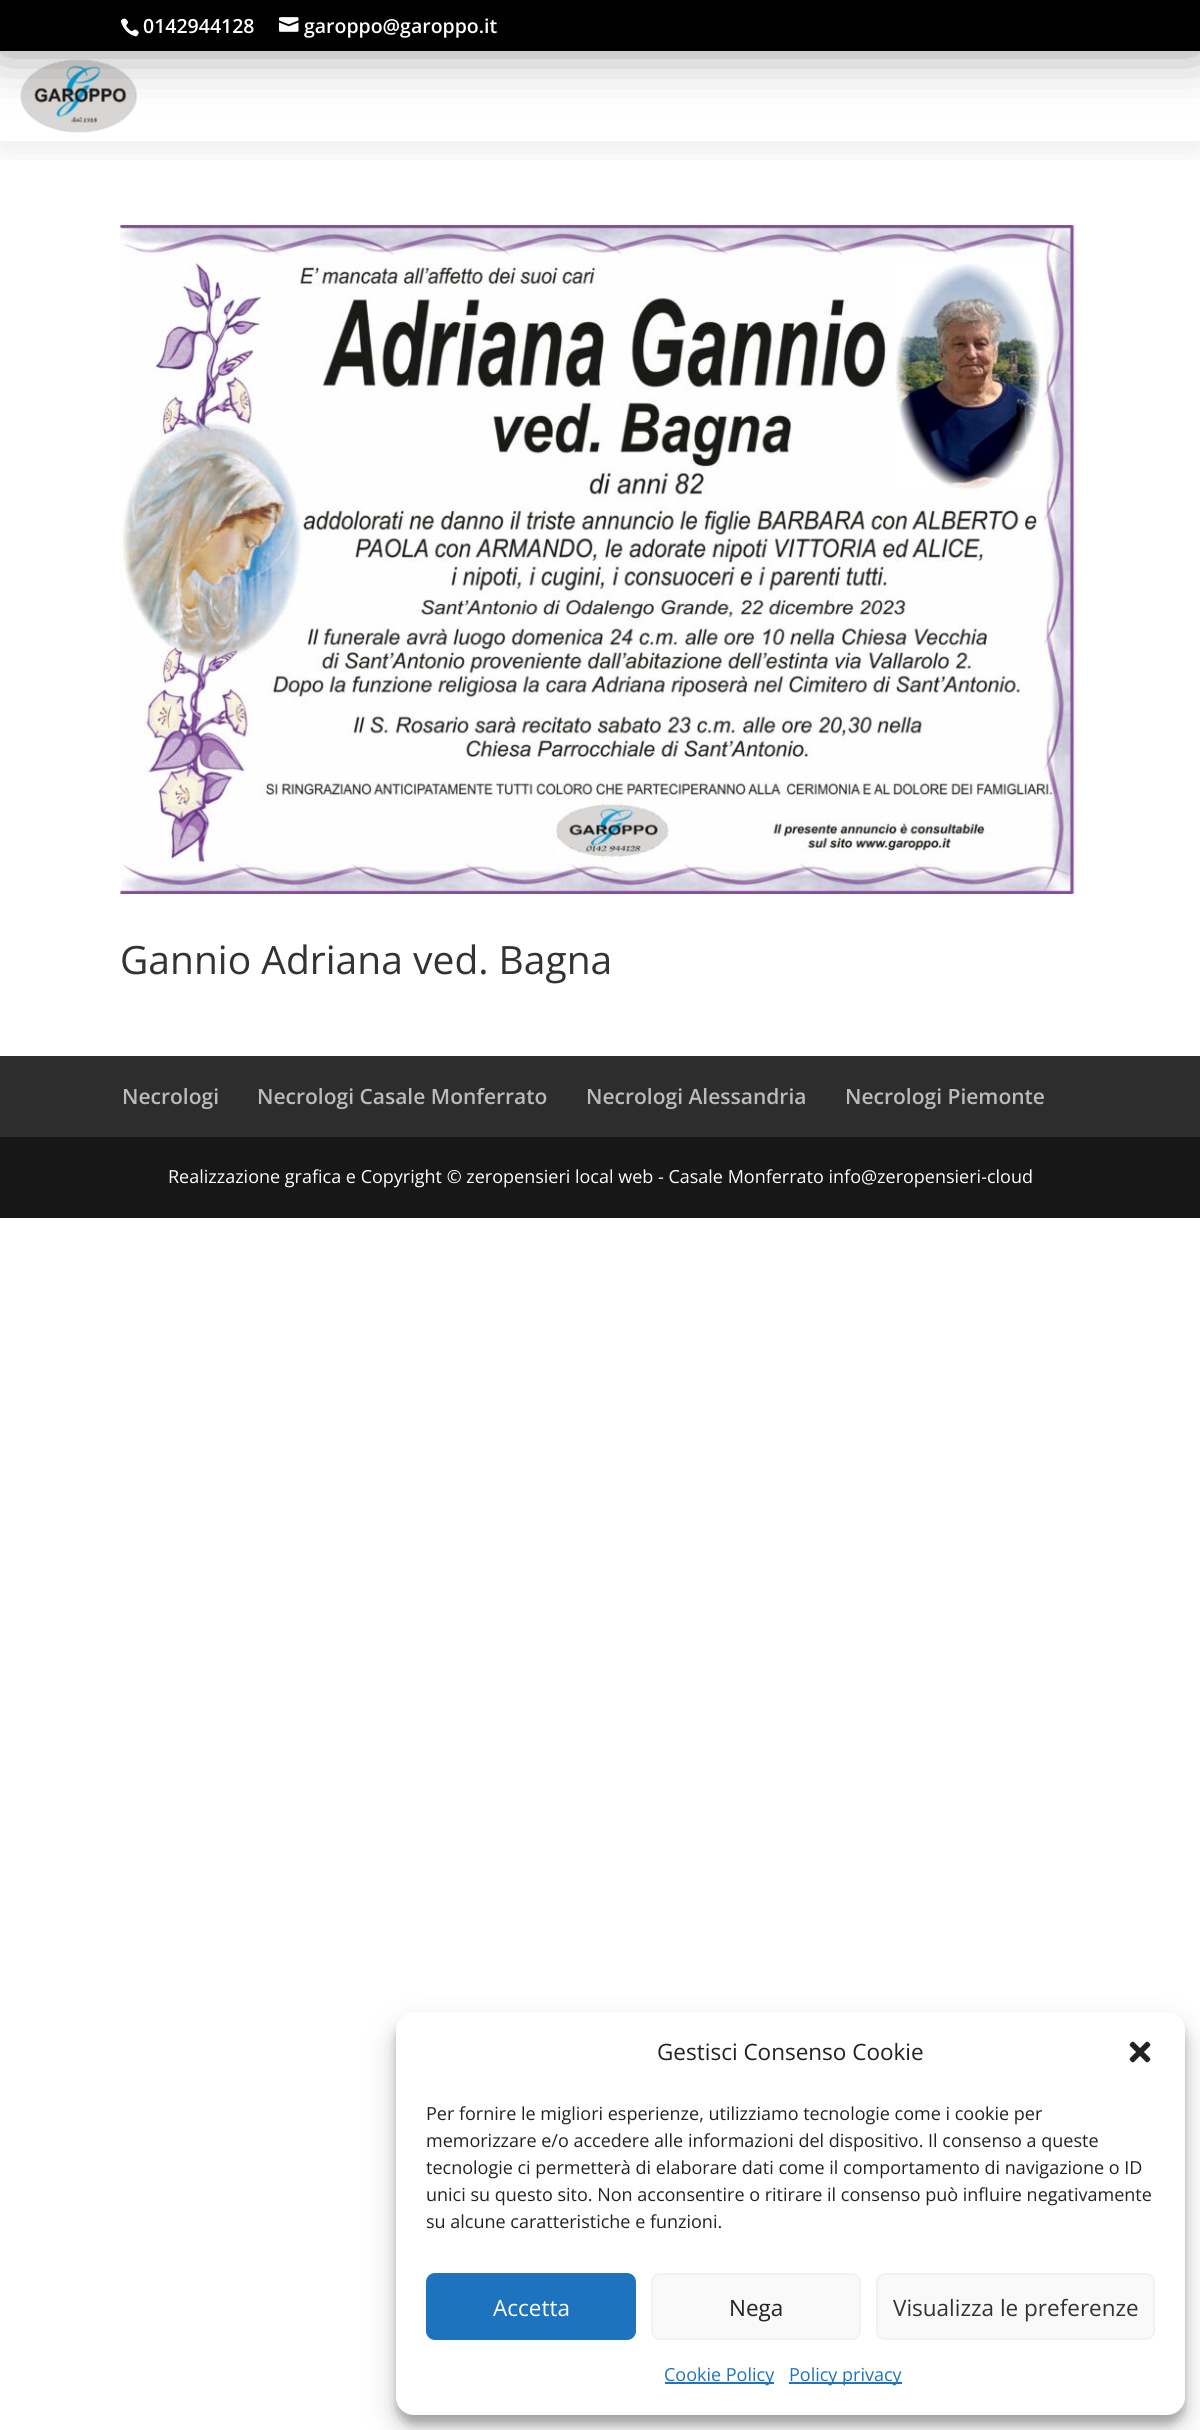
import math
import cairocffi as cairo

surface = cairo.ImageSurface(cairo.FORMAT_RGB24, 1200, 2430)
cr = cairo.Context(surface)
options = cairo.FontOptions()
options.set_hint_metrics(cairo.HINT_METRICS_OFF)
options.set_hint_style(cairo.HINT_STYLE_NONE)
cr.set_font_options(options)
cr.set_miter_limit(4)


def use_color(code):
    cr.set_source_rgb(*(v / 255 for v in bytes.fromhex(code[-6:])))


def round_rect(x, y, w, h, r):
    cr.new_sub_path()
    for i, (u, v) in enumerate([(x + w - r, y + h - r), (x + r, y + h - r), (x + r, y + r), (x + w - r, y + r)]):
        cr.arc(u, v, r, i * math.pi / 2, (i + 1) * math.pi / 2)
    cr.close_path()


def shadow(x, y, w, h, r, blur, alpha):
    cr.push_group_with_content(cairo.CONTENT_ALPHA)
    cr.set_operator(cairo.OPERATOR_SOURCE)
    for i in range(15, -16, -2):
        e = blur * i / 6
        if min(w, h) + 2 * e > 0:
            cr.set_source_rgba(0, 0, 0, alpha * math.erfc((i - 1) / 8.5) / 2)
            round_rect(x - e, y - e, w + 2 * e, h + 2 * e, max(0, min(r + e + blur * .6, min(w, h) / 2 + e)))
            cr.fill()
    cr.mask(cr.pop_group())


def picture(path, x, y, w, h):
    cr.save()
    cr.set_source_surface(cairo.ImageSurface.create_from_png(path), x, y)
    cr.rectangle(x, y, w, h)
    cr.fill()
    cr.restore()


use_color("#ffffff")
cr.paint()
cr.save()
cr.rectangle(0, 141, 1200, 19)
cr.clip()
use_color("#000000")
shadow(0, 54, 1200, 90, 0, 19, 0.1)
cr.restore()
picture("img1.png", 20, 59, 117, 74)
use_color("#000000")
shadow(0, -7, 1200, 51, 0, 30, 0.5)
use_color("#000000")
cr.rectangle(0, 0, 1200, 51)
cr.fill()
picture("img2.png", 120, 18, 19, 19)
cr.select_font_face("Open Sans SemiBold")
cr.set_font_size(19.5)
use_color("#ffffff")
cr.move_to(143, 33)
cr.show_text("0142944128")
picture("img3.png", 279, 17, 20, 15)
cr.move_to(304, 33)
cr.show_text("garoppo@garoppo.it")
picture("img4.png", 120, 225, 956, 669)
cr.select_font_face("Open Sans")
cr.set_font_size(39)
use_color("#333333")
cr.move_to(120, 974)
cr.show_text("Gannio Adriana ved. Bagna")
use_color("#2d2d2d")
cr.rectangle(0, 1056, 1200, 81)
cr.fill()
cr.select_font_face("Open Sans SemiBold")
cr.set_font_size(21)
use_color("#bbbbbb")
cr.move_to(122, 1104)
cr.show_text("Necrologi")
cr.move_to(257, 1104)
cr.show_text("Necrologi Casale Monferrato")
cr.move_to(586, 1104)
cr.show_text("Necrologi Alessandria")
cr.move_to(845, 1104)
cr.show_text("Necrologi Piemonte")
use_color("#171717")
cr.rectangle(0, 1137, 1200, 81)
cr.fill()
cr.select_font_face("Open Sans")
cr.set_font_size(18)
use_color("#ffffff")
cr.move_to(168, 1183)
cr.show_text("Realizzazione grafica e Copyright © zeropensieri local web - Casale Monferrato info@zeropensieri-cloud")
use_color("#000000")
shadow(396, 2021, 789, 403, 18, 4.5, 0.23)
shadow(396, 2027, 789, 403, 18, 15, 0.19)
use_color("#ffffff")
round_rect(396, 2012, 789, 403, 18)
cr.fill()
cr.set_font_size(22.5)
use_color("#222222")
cr.move_to(657, 2060)
cr.show_text("Gestisci Consenso Cookie")
picture("img5.png", 1129, 2041, 22, 22)
cr.set_font_size(18)
cr.move_to(426, 2120)
cr.show_text("Per fornire le migliori esperienze, utilizziamo tecnologie come i cookie per")
cr.move_to(426, 2147)
cr.show_text("memorizzare e/o accedere alle informazioni del dispositivo. Il consenso a queste")
cr.move_to(426, 2174)
cr.show_text("tecnologie ci permetterà di elaborare dati come il comportamento di navigazione o ID")
cr.move_to(426, 2201)
cr.show_text("unici su questo sito. Non acconsentire o ritirare il consenso può influire negativamente")
cr.move_to(426, 2228)
cr.show_text("su alcune caratteristiche e funzioni.")
use_color("#1e73be")
round_rect(427, 2274, 208, 65, 8)
cr.fill_preserve()
cr.stroke()
cr.set_font_size(22.5)
use_color("#ffffff")
cr.move_to(493, 2316)
cr.show_text("Accetta")
use_color("#f9f9f9")
round_rect(652, 2274, 208, 65, 8)
cr.fill_preserve()
use_color("#f2f2f2")
cr.stroke()
use_color("#222222")
cr.move_to(729, 2316)
cr.show_text("Nega")
use_color("#f9f9f9")
round_rect(877, 2274, 277, 65, 8)
cr.fill_preserve()
use_color("#f2f2f2")
cr.stroke()
use_color("#333333")
cr.move_to(893, 2316)
cr.show_text("Visualizza le preferenze")
use_color("#1e73be")
cr.rectangle(665, 2382, 109, 2)
cr.fill()
cr.set_font_size(18)
cr.move_to(664, 2381)
cr.show_text("Cookie Policy")
cr.rectangle(789, 2382, 113, 2)
cr.fill()
cr.move_to(789, 2381)
cr.show_text("Policy privacy")
surface.write_to_png("result.png")
